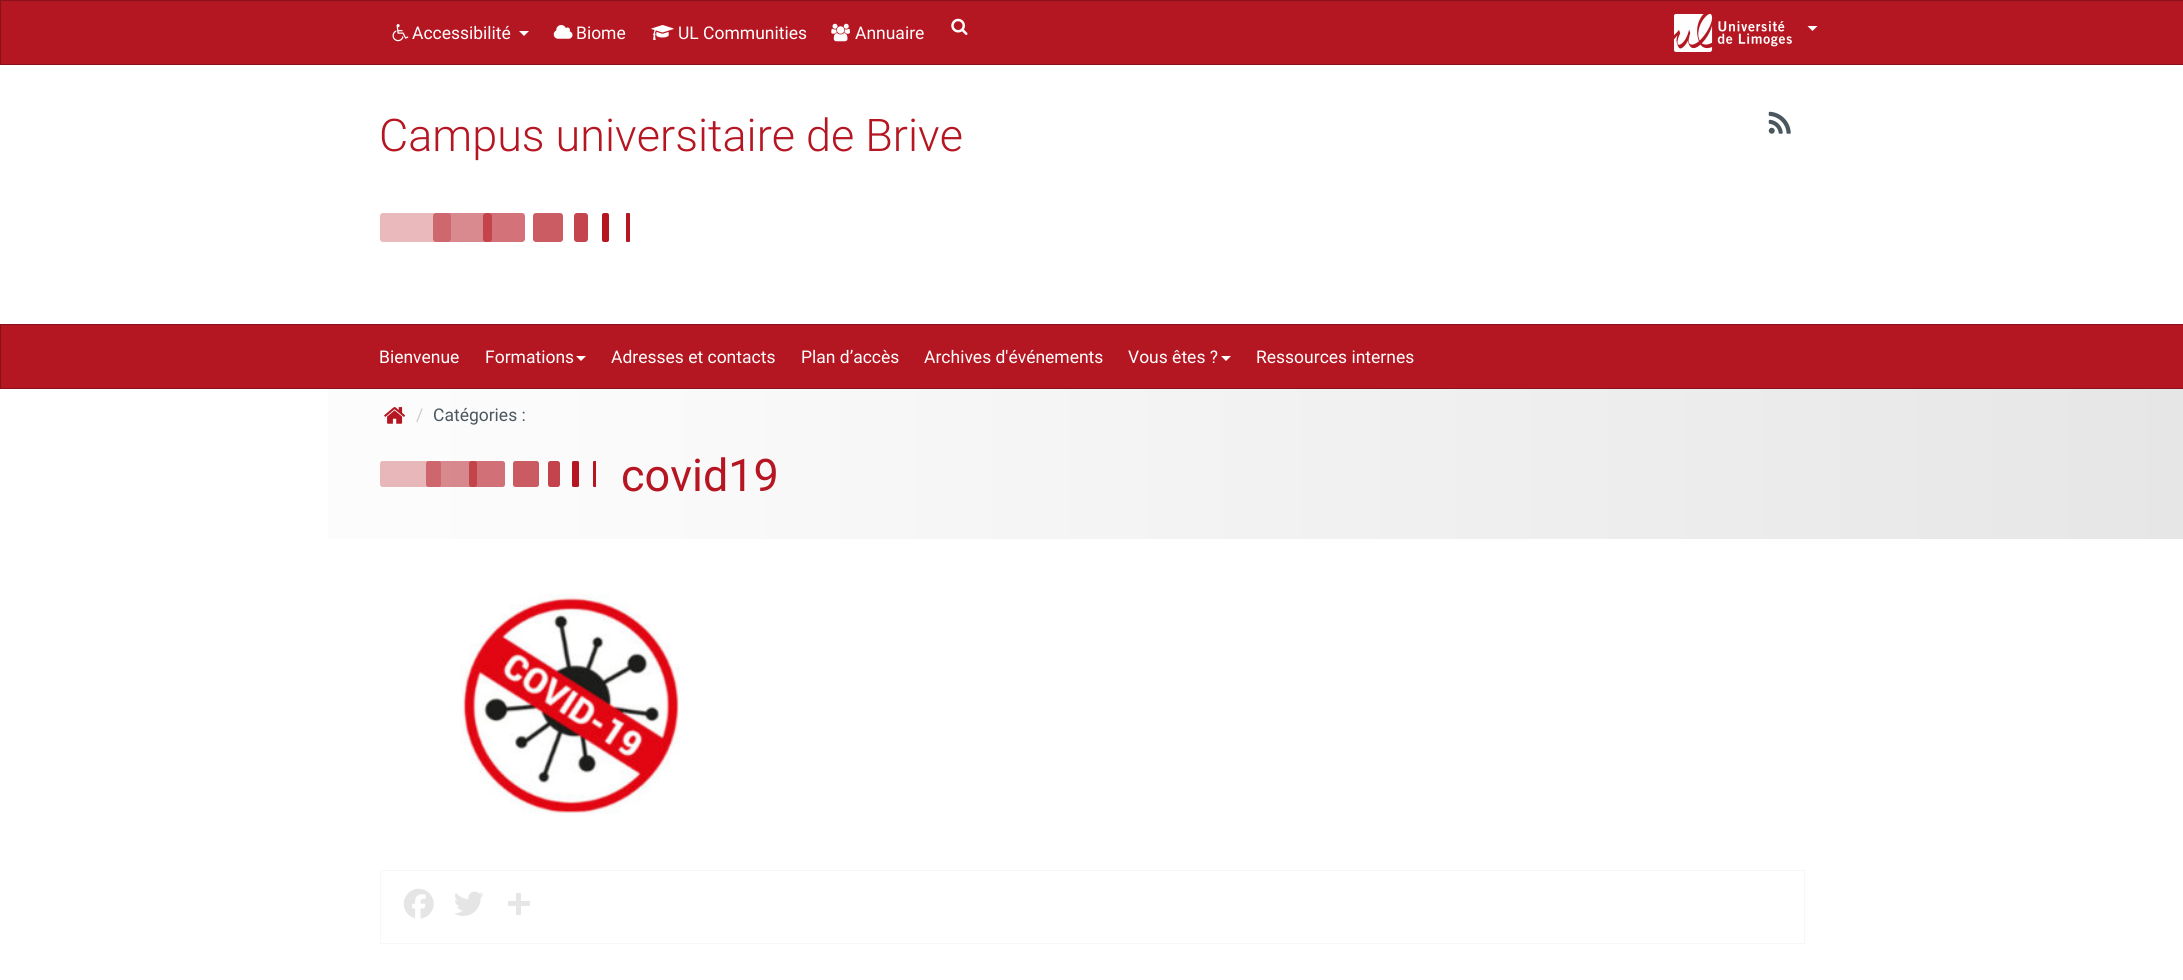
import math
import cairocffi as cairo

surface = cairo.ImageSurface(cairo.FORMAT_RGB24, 2183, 980)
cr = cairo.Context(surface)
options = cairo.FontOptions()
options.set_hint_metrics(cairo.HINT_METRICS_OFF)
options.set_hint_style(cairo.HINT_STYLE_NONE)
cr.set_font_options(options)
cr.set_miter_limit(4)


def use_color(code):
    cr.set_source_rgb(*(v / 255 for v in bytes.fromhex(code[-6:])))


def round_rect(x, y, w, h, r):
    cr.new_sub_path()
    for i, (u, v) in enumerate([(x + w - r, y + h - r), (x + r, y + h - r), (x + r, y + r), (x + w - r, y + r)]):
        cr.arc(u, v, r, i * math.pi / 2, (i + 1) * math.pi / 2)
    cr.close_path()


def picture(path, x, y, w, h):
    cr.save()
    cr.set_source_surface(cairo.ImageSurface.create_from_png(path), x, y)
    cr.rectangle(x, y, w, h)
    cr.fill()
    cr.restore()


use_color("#ffffff")
cr.paint()
use_color("#b51722")
cr.rectangle(0.5, 0.5, 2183, 64)
cr.fill_preserve()
use_color("#88111a")
cr.set_line_width(1)
cr.stroke()
picture("img1.png", 392, 24, 17, 18)
cr.select_font_face("Roboto")
cr.set_font_size(17.5)
use_color("#ffffff")
cr.move_to(412, 39)
cr.show_text("Accessibilité")
cr.new_path()
cr.move_to(519, 31)
cr.line_to(529, 31)
cr.line_to(524, 36)
cr.close_path()
cr.fill()
picture("img2.png", 553, 25, 20, 14)
cr.move_to(576, 39)
cr.show_text("Biome")
picture("img3.png", 651, 25, 23, 15)
cr.move_to(678, 39)
cr.show_text("UL Communities")
picture("img4.png", 831, 23, 19, 19)
cr.move_to(855, 39)
cr.show_text("Annuaire")
picture("img5.png", 951, 18, 17, 17)
picture("img6.png", 1674, 14, 118, 38)
cr.new_path()
cr.move_to(1807.5, 26)
cr.line_to(1817.5, 26)
cr.line_to(1812.5, 31)
cr.close_path()
cr.fill()
cr.select_font_face("Roboto Light")
cr.set_font_size(45)
use_color("#b51621")
cr.move_to(379, 151)
cr.show_text("Campus universitaire de Brive")
use_color("#e9b9bc")
round_rect(380, 213, 71, 29, 3)
cr.fill()
cr.set_source_rgba(0.71, 0.086, 0.129, 0.5)
round_rect(433, 213, 59, 29, 3)
cr.fill()
cr.set_source_rgba(0.71, 0.086, 0.129, 0.6)
round_rect(483, 213, 42, 29, 3)
cr.fill()
use_color("#cb5c64")
round_rect(533, 213, 30, 29, 3)
cr.fill()
use_color("#c4454d")
round_rect(574, 213, 14, 29, 3)
cr.fill()
use_color("#b51621")
round_rect(602, 213, 7, 29, 2)
cr.fill()
round_rect(626, 213, 4, 29, 1)
cr.fill()
picture("img7.png", 1768, 111, 23, 23)
use_color("#b51722")
cr.rectangle(0.5, 324.5, 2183, 64)
cr.fill_preserve()
use_color("#88111a")
cr.stroke()
cr.select_font_face("Roboto")
cr.set_font_size(17.5)
use_color("#ffffff")
cr.move_to(379, 363)
cr.show_text("Bienvenue")
cr.move_to(485, 363)
cr.show_text("Formations")
cr.new_path()
cr.move_to(576, 356)
cr.line_to(586, 356)
cr.line_to(581, 361)
cr.close_path()
cr.fill()
cr.move_to(611, 363)
cr.show_text("Adresses et contacts")
cr.move_to(801, 363)
cr.show_text("Plan d’accès")
cr.move_to(924, 363)
cr.show_text("Archives d'événements")
cr.move_to(1128, 363)
cr.show_text("Vous êtes ?")
cr.new_path()
cr.move_to(1221, 356)
cr.line_to(1231, 356)
cr.line_to(1226, 361)
cr.close_path()
cr.fill()
cr.move_to(1256, 363)
cr.show_text("Ressources internes")
gradient = cairo.LinearGradient(0, 464, 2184, 464)
gradient.add_color_stop_rgba(0, 1, 1, 1, 1)
gradient.add_color_stop_rgba(0.3, 0.98, 0.98, 0.98, 1)
gradient.add_color_stop_rgba(1, 0.902, 0.902, 0.902, 1)
cr.set_source(gradient)
cr.rectangle(328, 389, 1855, 150)
cr.fill()
picture("img8.png", 384, 407, 21, 17)
use_color("#cccccc")
cr.move_to(416, 421)
cr.show_text("/")
use_color("#4b575f")
cr.move_to(433, 421)
cr.show_text("Catégories :")
use_color("#e7b7ba")
round_rect(380, 461, 61, 26, 2.5)
cr.fill()
cr.set_source_rgba(0.71, 0.086, 0.129, 0.5)
round_rect(426, 461, 51, 26, 2.5)
cr.fill()
cr.set_source_rgba(0.71, 0.086, 0.129, 0.6)
round_rect(469, 461, 36, 26, 2.5)
cr.fill()
use_color("#ca5b62")
round_rect(513, 461, 26, 26, 2.5)
cr.fill()
use_color("#c3444d")
round_rect(548, 461, 12, 26, 2.5)
cr.fill()
use_color("#b51621")
round_rect(572, 461, 7, 26, 1.5)
cr.fill()
cr.new_path()
cr.move_to(594, 461)
cr.line_to(596, 461)
cr.line_to(596, 487)
cr.line_to(594, 487)
cr.curve_to(593.5, 487, 593, 486.5, 593, 486)
cr.line_to(593, 462)
cr.curve_to(593, 461.5, 593.5, 461, 594, 461)
cr.close_path()
cr.fill()
cr.set_font_size(45)
cr.move_to(621, 491)
cr.show_text("covid19")
picture("img9.png", 460, 594, 220, 220)
cr.rectangle(380.5, 870.5, 1424, 73)
use_color("#f7f7f7")
cr.stroke()
picture("img10.png", 403, 888, 31, 31)
picture("img11.png", 454, 891, 30, 25)
use_color("#e6e6e6")
cr.rectangle(516, 893, 5, 22)
cr.fill()
cr.rectangle(508, 901, 22, 5)
cr.fill()
surface.write_to_png("result.png")
